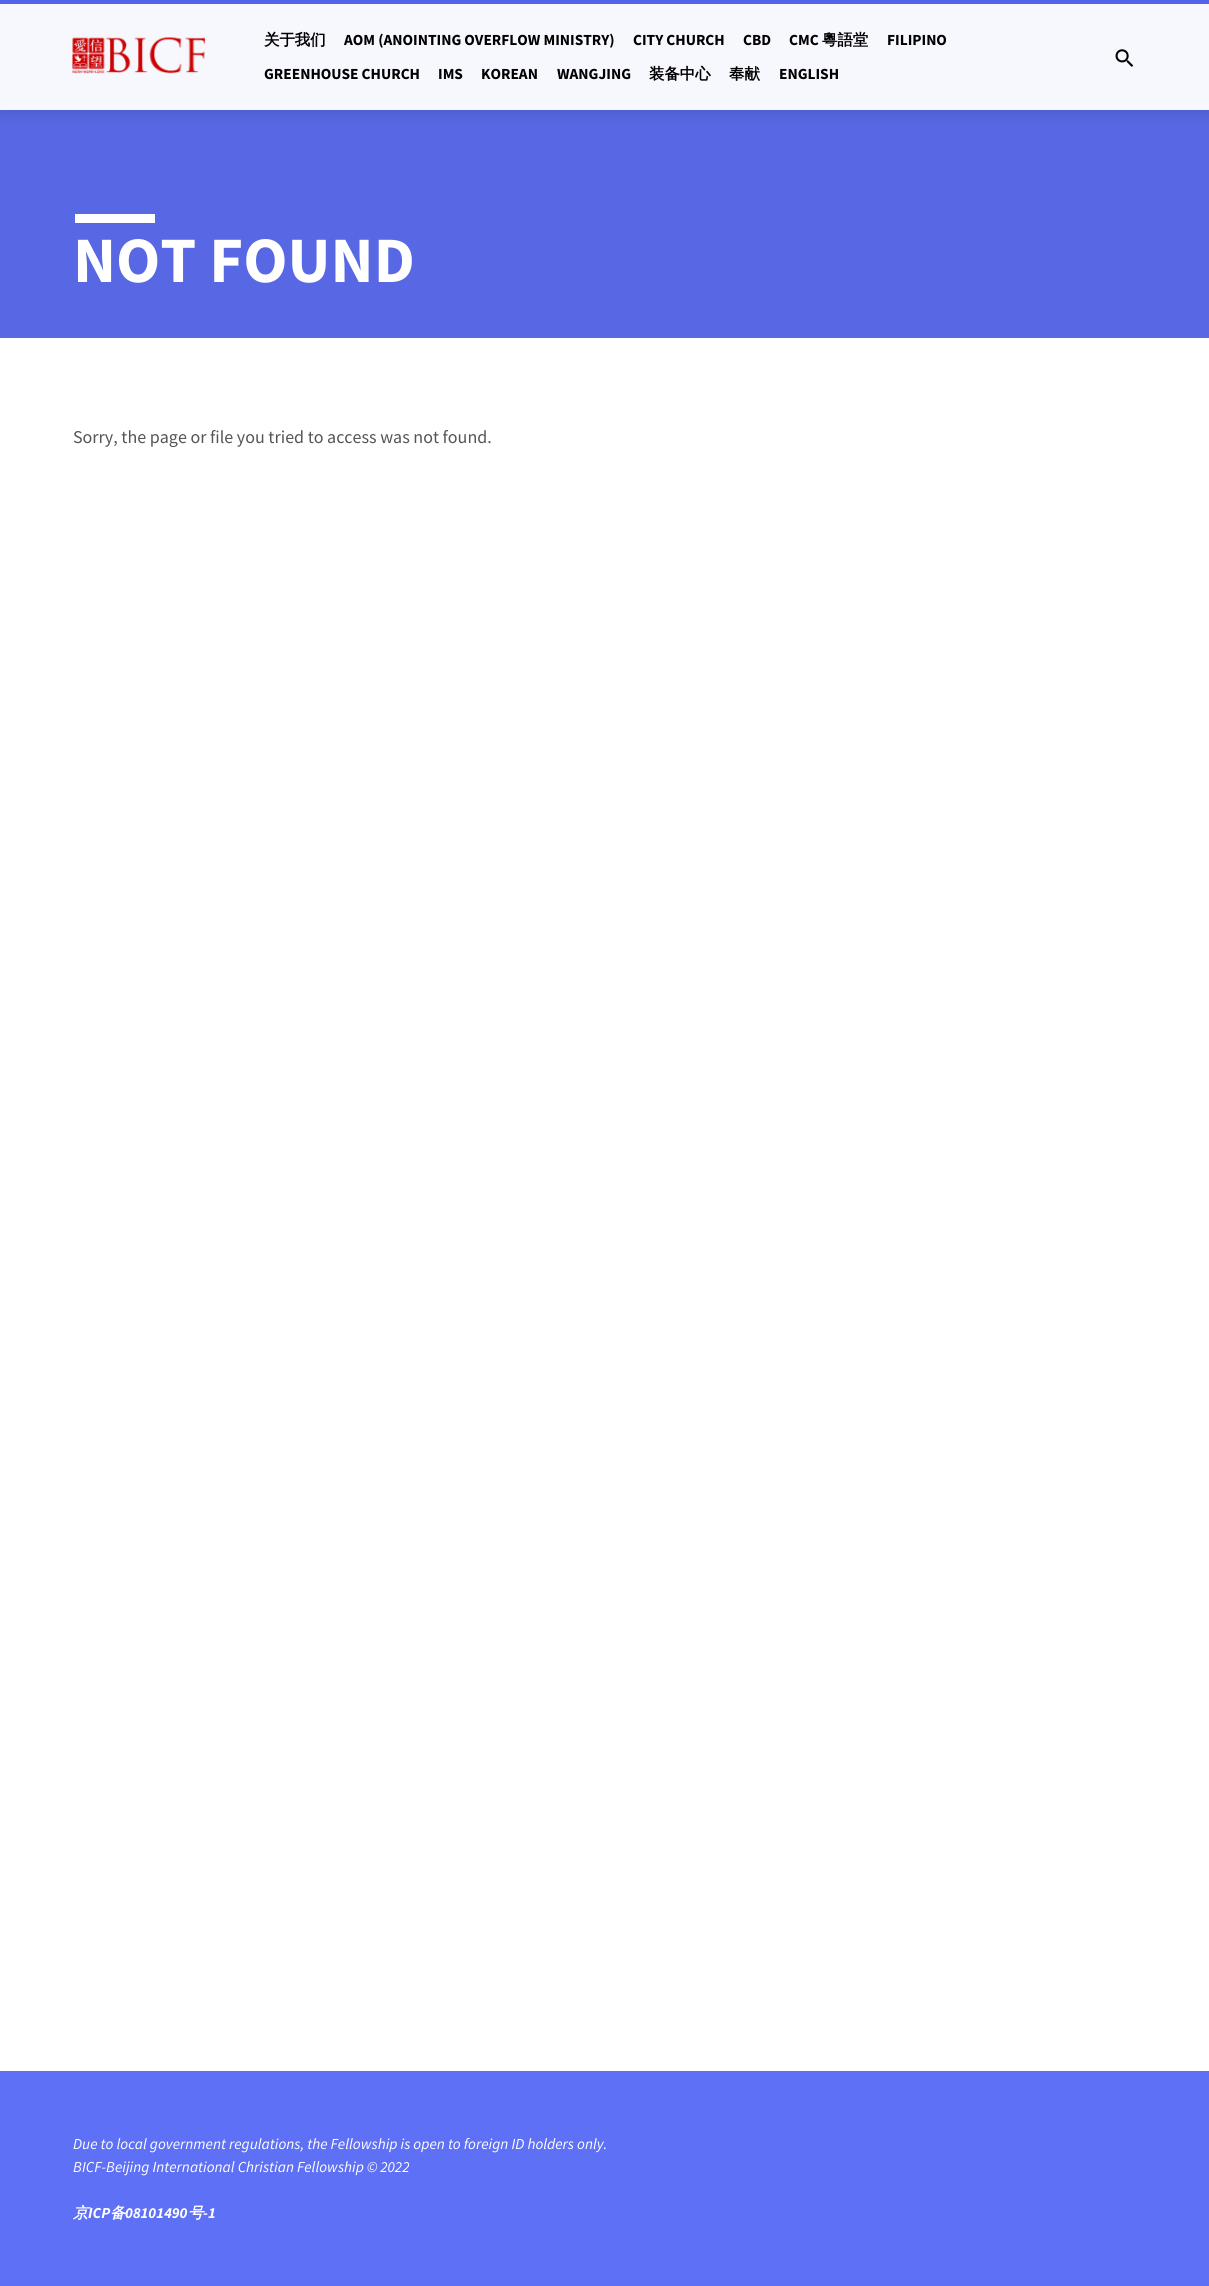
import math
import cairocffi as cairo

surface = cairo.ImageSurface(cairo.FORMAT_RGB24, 1209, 2286)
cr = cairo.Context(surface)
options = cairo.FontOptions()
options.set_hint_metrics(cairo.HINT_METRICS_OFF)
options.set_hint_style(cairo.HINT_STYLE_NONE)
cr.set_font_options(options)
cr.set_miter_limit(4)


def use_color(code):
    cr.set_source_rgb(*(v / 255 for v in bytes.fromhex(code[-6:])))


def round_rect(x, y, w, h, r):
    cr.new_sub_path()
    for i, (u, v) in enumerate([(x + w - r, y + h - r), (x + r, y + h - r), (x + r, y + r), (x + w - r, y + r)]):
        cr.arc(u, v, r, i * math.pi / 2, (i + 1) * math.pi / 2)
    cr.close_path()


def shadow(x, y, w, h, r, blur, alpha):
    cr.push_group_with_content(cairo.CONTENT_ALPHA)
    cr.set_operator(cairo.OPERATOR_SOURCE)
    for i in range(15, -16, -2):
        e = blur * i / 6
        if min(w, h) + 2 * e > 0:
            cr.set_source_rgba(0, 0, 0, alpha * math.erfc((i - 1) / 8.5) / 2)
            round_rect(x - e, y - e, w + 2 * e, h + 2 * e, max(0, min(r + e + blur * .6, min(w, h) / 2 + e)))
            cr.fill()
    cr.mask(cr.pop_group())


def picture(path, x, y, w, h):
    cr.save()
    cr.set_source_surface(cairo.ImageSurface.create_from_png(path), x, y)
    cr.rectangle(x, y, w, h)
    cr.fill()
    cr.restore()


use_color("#ffffff")
cr.paint()
use_color("#5568f3")
cr.rectangle(0, 0, 1209, 4)
cr.fill()
use_color("#f7f7fe")
cr.rectangle(0, 4, 1209, 106)
cr.fill()
use_color("#5868e4")
cr.rectangle(0, 110, 1209, 228)
cr.fill()
cr.save()
cr.set_fill_rule(cairo.FILL_RULE_EVEN_ODD)
cr.new_path()
cr.move_to(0, 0)
cr.line_to(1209, 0)
cr.line_to(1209, 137)
cr.line_to(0, 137)
cr.close_path()
cr.move_to(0, 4)
cr.line_to(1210, 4)
cr.line_to(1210, 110)
cr.line_to(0, 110)
cr.close_path()
cr.clip()
use_color("#000000")
shadow(0, 6, 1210, 107, 0, 7.5, 0.14)
cr.restore()
picture("img1.png", 72, 37, 133, 37)
cr.select_font_face("WenQuanYi Zen Hei", cairo.FONT_SLANT_NORMAL, cairo.FONT_WEIGHT_BOLD)
cr.set_font_size(15.4)
use_color("#000000")
cr.move_to(264, 45)
cr.show_text("关于我们")
cr.select_font_face("Source Sans Pro", cairo.FONT_SLANT_NORMAL, cairo.FONT_WEIGHT_BOLD)
cr.move_to(344, 45)
cr.show_text("AOM (ANOINTING OVERFLOW MINISTRY)")
cr.move_to(633, 45)
cr.show_text("CITY CHURCH")
cr.move_to(743, 45)
cr.show_text("CBD")
cr.move_to(789, 45)
cr.show_text("CMC")
cr.select_font_face("WenQuanYi Zen Hei", cairo.FONT_SLANT_NORMAL, cairo.FONT_WEIGHT_BOLD)
cr.move_to(822, 45)
cr.show_text("粵語堂")
cr.select_font_face("Source Sans Pro", cairo.FONT_SLANT_NORMAL, cairo.FONT_WEIGHT_BOLD)
cr.move_to(887, 45)
cr.show_text("FILIPINO")
cr.move_to(264, 79)
cr.show_text("GREENHOUSE CHURCH")
cr.move_to(438, 79)
cr.show_text("IMS")
cr.move_to(481, 79)
cr.show_text("KOREAN")
cr.move_to(557, 79)
cr.show_text("WANGJING")
cr.select_font_face("WenQuanYi Zen Hei", cairo.FONT_SLANT_NORMAL, cairo.FONT_WEIGHT_BOLD)
cr.move_to(649, 79)
cr.show_text("装备中心")
cr.move_to(729, 79)
cr.show_text("奉献")
cr.select_font_face("Source Sans Pro", cairo.FONT_SLANT_NORMAL, cairo.FONT_WEIGHT_BOLD)
cr.move_to(779, 79)
cr.show_text("ENGLISH")
picture("img2.png", 1115, 49, 19, 18)
use_color("#ffffff")
cr.rectangle(75, 214, 80, 9)
cr.fill()
cr.set_font_size(64.75)
cr.move_to(73, 282)
cr.show_text("NOT FOUND")
cr.select_font_face("Source Sans Pro")
cr.set_font_size(18)
use_color("#555555")
cr.move_to(73, 443)
cr.show_text("Sorry, the page or file you tried to access was not found.")
use_color("#5e70f5")
cr.rectangle(0, 2071, 1209, 215)
cr.fill()
cr.select_font_face("Source Sans Pro", cairo.FONT_SLANT_ITALIC)
cr.set_font_size(15.3)
use_color("#ffffff")
cr.move_to(73, 2149)
cr.show_text("Due to local government regulations, the Fellowship is open to foreign ID holders only.")
cr.move_to(73, 2172)
cr.show_text("BICF-Beijing International Christian Fellowship © 2022")
cr.select_font_face("WenQuanYi Zen Hei", cairo.FONT_SLANT_ITALIC, cairo.FONT_WEIGHT_BOLD)
cr.move_to(73, 2218)
cr.show_text("京")
cr.select_font_face("Source Sans Pro", cairo.FONT_SLANT_ITALIC, cairo.FONT_WEIGHT_BOLD)
cr.move_to(88, 2218)
cr.show_text("ICP")
cr.select_font_face("WenQuanYi Zen Hei", cairo.FONT_SLANT_ITALIC, cairo.FONT_WEIGHT_BOLD)
cr.move_to(110, 2218)
cr.show_text("备")
cr.select_font_face("Source Sans Pro", cairo.FONT_SLANT_ITALIC, cairo.FONT_WEIGHT_BOLD)
cr.move_to(125, 2218)
cr.show_text("08101490")
cr.select_font_face("WenQuanYi Zen Hei", cairo.FONT_SLANT_ITALIC, cairo.FONT_WEIGHT_BOLD)
cr.move_to(188, 2218)
cr.show_text("号")
cr.select_font_face("Source Sans Pro", cairo.FONT_SLANT_ITALIC, cairo.FONT_WEIGHT_BOLD)
cr.move_to(203, 2218)
cr.show_text("-1")
surface.write_to_png("result.png")
